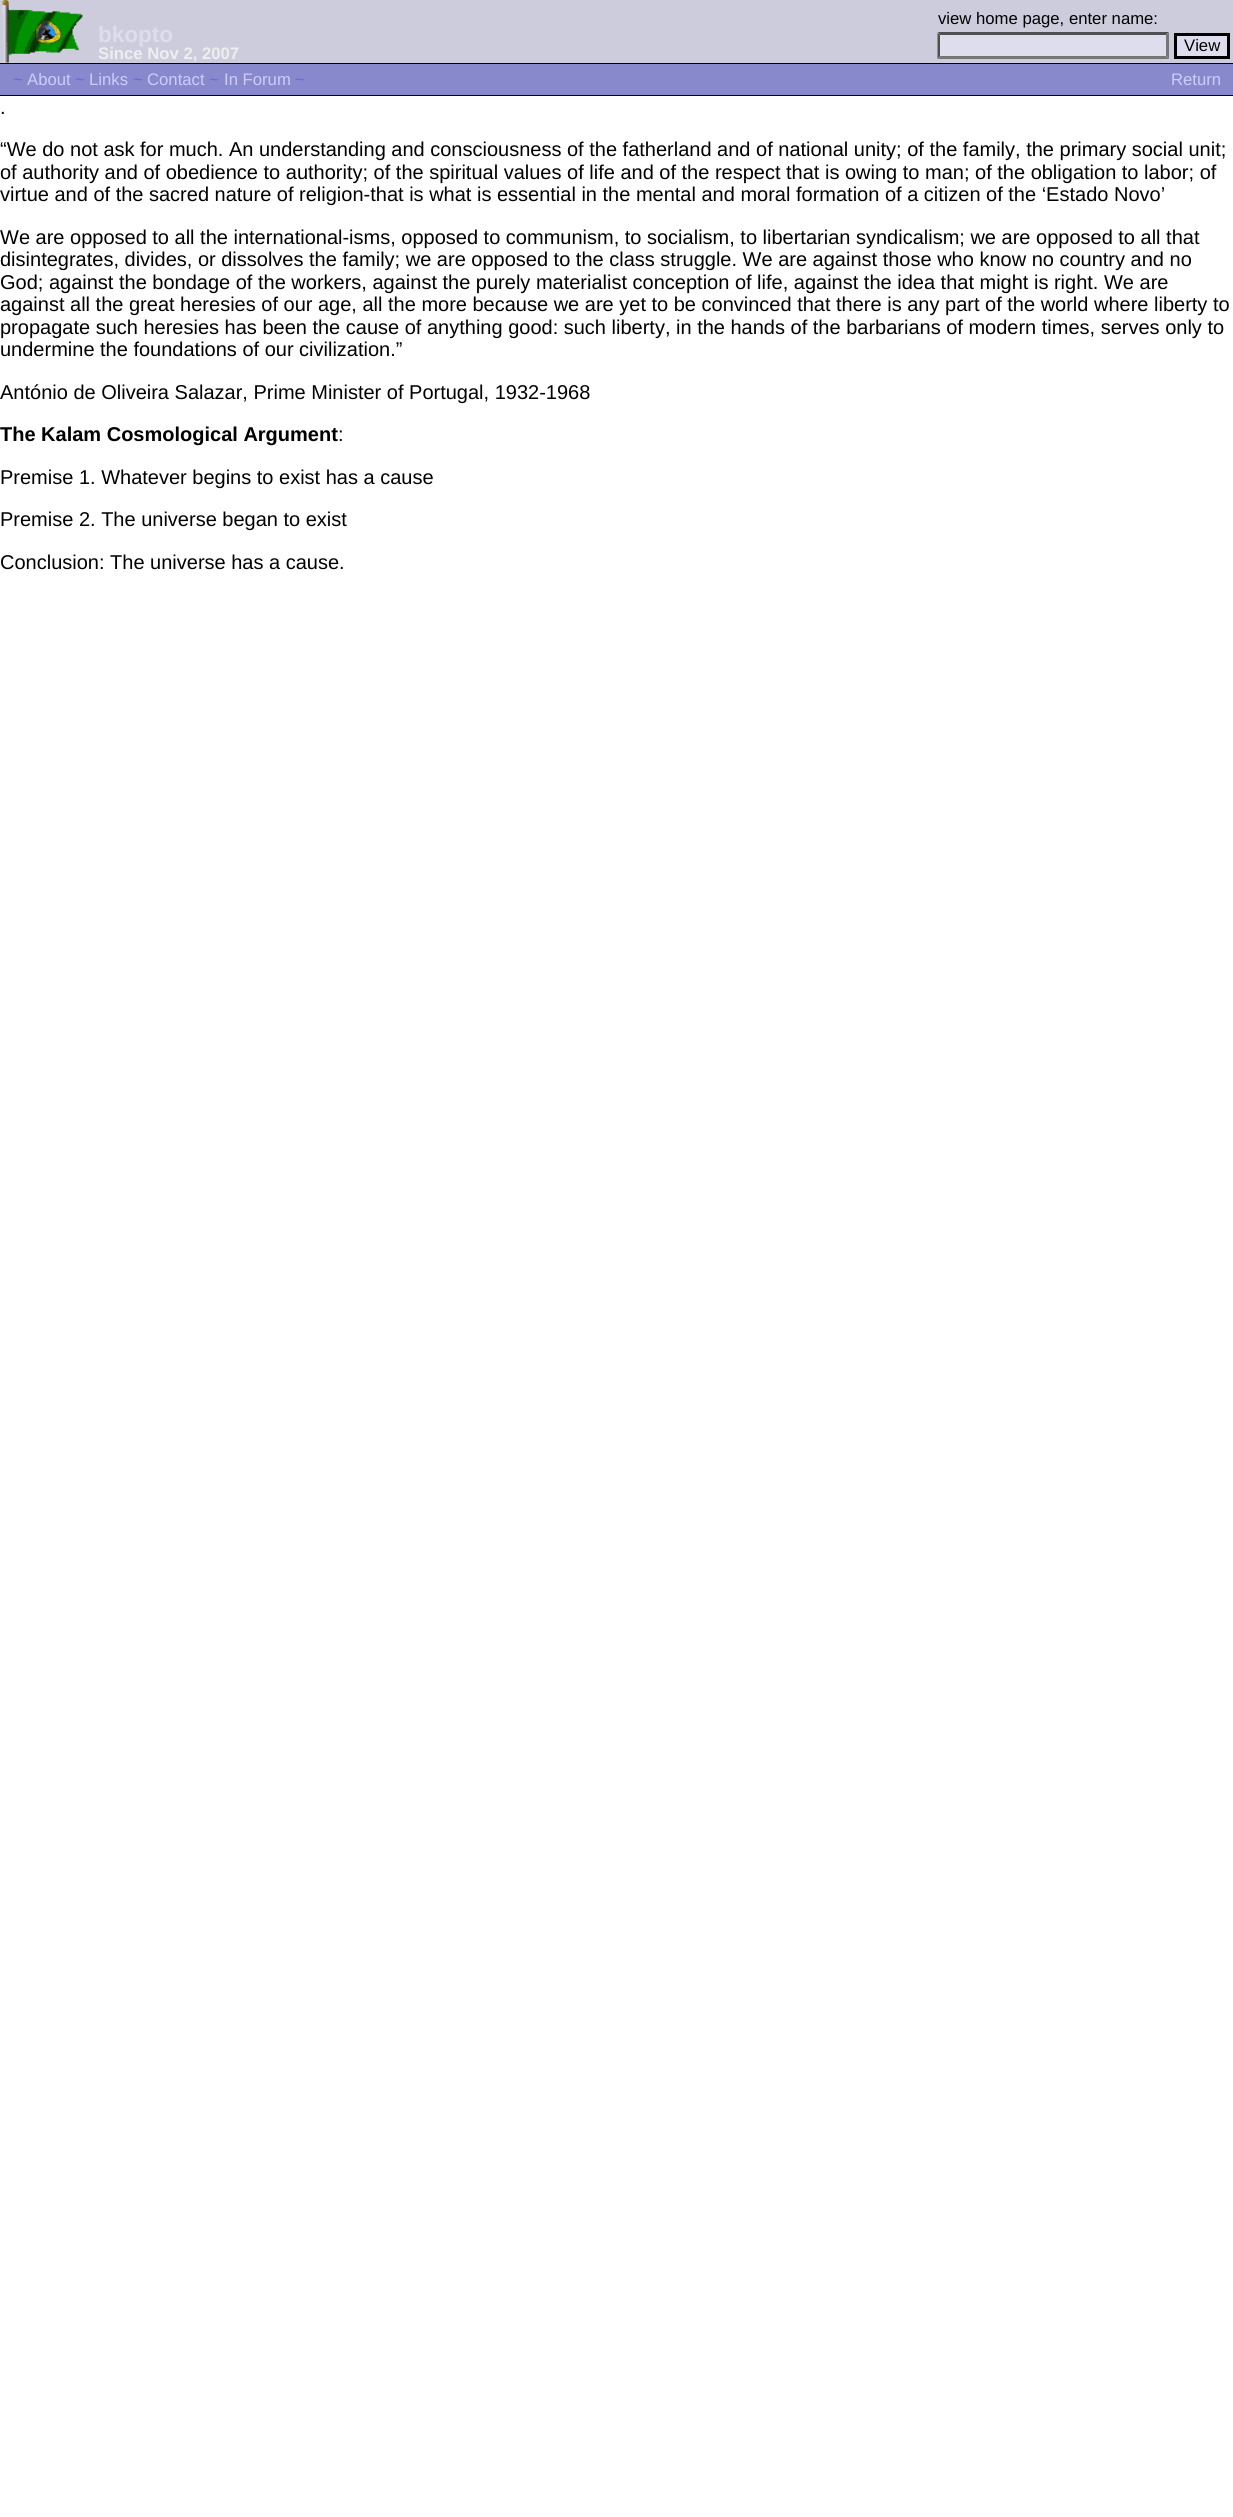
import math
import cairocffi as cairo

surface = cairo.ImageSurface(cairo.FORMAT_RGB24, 1233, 2517)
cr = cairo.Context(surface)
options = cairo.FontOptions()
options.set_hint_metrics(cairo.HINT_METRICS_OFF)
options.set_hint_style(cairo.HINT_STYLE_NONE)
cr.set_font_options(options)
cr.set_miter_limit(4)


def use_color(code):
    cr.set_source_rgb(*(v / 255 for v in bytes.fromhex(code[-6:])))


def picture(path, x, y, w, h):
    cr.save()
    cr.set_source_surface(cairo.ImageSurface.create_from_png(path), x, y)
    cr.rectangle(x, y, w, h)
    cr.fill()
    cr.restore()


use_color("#ffffff")
cr.paint()
use_color("#ccccdd")
cr.rectangle(0, 0, 1233, 63)
cr.fill()
picture("img1.png", 2, 0, 81, 63)
cr.select_font_face("Liberation Sans", cairo.FONT_SLANT_NORMAL, cairo.FONT_WEIGHT_BOLD)
cr.set_font_size(22.5)
use_color("#ddddee")
cr.move_to(98, 42)
cr.show_text("bkopto")
cr.set_font_size(16.7)
use_color("#eeeeee")
cr.move_to(98, 59)
cr.show_text("Since Nov 2, 2007")
cr.select_font_face("Liberation Sans")
use_color("#000000")
cr.move_to(938, 24)
cr.show_text("view home page, enter name:")
use_color("#ddddee")
cr.rectangle(938, 33, 231, 26)
cr.fill()
use_color("#4f4f4f")
cr.new_path()
cr.move_to(938, 32)
cr.line_to(1169, 32)
cr.line_to(1166, 35)
cr.line_to(940, 35)
cr.close_path()
cr.fill()
use_color("#767676")
cr.new_path()
cr.move_to(1169, 32.5)
cr.line_to(1169, 59)
cr.line_to(1166, 56)
cr.line_to(1166, 35)
cr.close_path()
cr.fill()
cr.new_path()
cr.move_to(1169, 59)
cr.line_to(938, 59)
cr.line_to(940, 56)
cr.line_to(1166, 56)
cr.close_path()
cr.fill()
use_color("#4f4f4f")
cr.new_path()
cr.move_to(937.5, 59)
cr.line_to(937.5, 32.5)
cr.line_to(940, 35)
cr.line_to(940, 56)
cr.close_path()
cr.fill()
use_color("#ddddee")
cr.rectangle(1175.5, 34.5, 53, 23)
cr.fill_preserve()
use_color("#000000")
cr.set_line_width(3)
cr.stroke()
cr.move_to(1184, 51)
cr.show_text("View")
use_color("#8888cc")
cr.rectangle(0, 64, 1233, 31)
cr.fill()
use_color("#000000")
cr.rectangle(0, 63, 1233, 1)
cr.fill()
cr.rectangle(0, 95, 1233, 1)
cr.fill()
use_color("#6666dd")
cr.move_to(13, 85)
cr.show_text("~")
use_color("#ccccff")
cr.move_to(27, 85)
cr.show_text("About")
use_color("#6666dd")
cr.move_to(75, 85)
cr.show_text("~")
use_color("#ccccff")
cr.move_to(89, 85)
cr.show_text("Links")
use_color("#6666dd")
cr.move_to(133, 85)
cr.show_text("~")
use_color("#ccccff")
cr.move_to(147, 85)
cr.show_text("Contact")
use_color("#6666dd")
cr.move_to(209, 85)
cr.show_text("~")
use_color("#ccccff")
cr.move_to(224, 85)
cr.show_text("In Forum")
use_color("#6666dd")
cr.move_to(295, 85)
cr.show_text("~")
use_color("#ccccff")
cr.move_to(1171, 85)
cr.show_text("Return")
cr.set_font_size(20)
use_color("#000000")
cr.move_to(0, 114)
cr.show_text(".")
cr.move_to(0, 156)
cr.show_text("“We do not ask for much. An understanding and consciousness of the fatherland and of national unity; of the family, the primary social unit;")
cr.move_to(0, 179)
cr.show_text("of authority and of obedience to authority; of the spiritual values of life and of the respect that is owing to man; of the obligation to labor; of")
cr.move_to(0, 201)
cr.show_text("virtue and of the sacred nature of religion-that is what is essential in the mental and moral formation of a citizen of the ‘Estado Novo’")
cr.move_to(0, 244)
cr.show_text("We are opposed to all the international-isms, opposed to communism, to socialism, to libertarian syndicalism; we are opposed to all that")
cr.move_to(0, 266)
cr.show_text("disintegrates, divides, or dissolves the family; we are opposed to the class struggle. We are against those who know no country and no")
cr.move_to(0, 289)
cr.show_text("God; against the bondage of the workers, against the purely materialist conception of life, against the idea that might is right. We are")
cr.move_to(0, 311)
cr.show_text("against all the great heresies of our age, all the more because we are yet to be convinced that there is any part of the world where liberty to")
cr.move_to(0, 334)
cr.show_text("propagate such heresies has been the cause of anything good: such liberty, in the hands of the barbarians of modern times, serves only to")
cr.move_to(0, 356)
cr.show_text("undermine the foundations of our civilization.”")
cr.move_to(0, 399)
cr.show_text("António de Oliveira Salazar, Prime Minister of Portugal, 1932-1968")
cr.select_font_face("Liberation Sans", cairo.FONT_SLANT_NORMAL, cairo.FONT_WEIGHT_BOLD)
cr.move_to(0, 441)
cr.show_text("The Kalam Cosmological Argument")
cr.select_font_face("Liberation Sans")
cr.move_to(338, 441)
cr.show_text(":")
cr.move_to(0, 484)
cr.show_text("Premise 1. Whatever begins to exist has a cause")
cr.move_to(0, 526)
cr.show_text("Premise 2. The universe began to exist")
cr.move_to(0, 569)
cr.show_text("Conclusion: The universe has a cause.")
surface.write_to_png("result.png")
